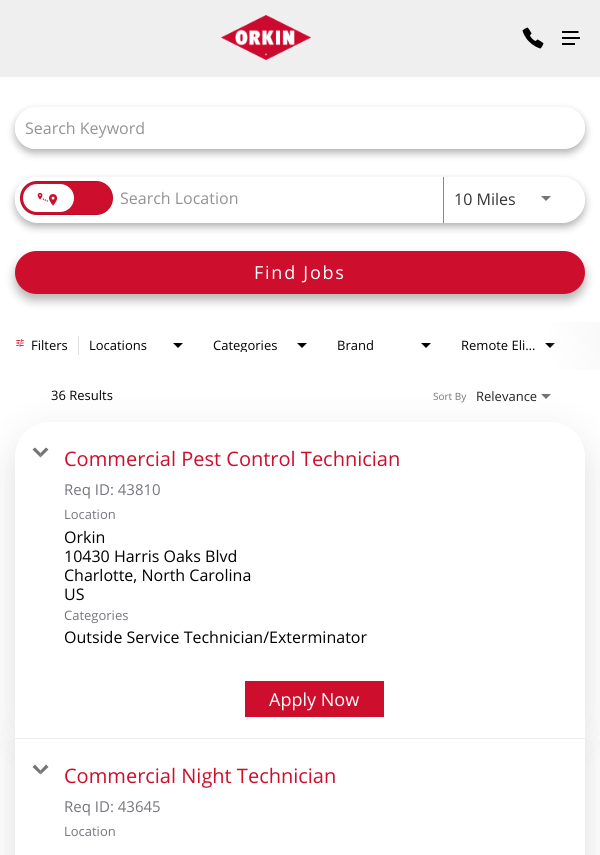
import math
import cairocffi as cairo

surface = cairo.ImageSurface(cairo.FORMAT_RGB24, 600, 855)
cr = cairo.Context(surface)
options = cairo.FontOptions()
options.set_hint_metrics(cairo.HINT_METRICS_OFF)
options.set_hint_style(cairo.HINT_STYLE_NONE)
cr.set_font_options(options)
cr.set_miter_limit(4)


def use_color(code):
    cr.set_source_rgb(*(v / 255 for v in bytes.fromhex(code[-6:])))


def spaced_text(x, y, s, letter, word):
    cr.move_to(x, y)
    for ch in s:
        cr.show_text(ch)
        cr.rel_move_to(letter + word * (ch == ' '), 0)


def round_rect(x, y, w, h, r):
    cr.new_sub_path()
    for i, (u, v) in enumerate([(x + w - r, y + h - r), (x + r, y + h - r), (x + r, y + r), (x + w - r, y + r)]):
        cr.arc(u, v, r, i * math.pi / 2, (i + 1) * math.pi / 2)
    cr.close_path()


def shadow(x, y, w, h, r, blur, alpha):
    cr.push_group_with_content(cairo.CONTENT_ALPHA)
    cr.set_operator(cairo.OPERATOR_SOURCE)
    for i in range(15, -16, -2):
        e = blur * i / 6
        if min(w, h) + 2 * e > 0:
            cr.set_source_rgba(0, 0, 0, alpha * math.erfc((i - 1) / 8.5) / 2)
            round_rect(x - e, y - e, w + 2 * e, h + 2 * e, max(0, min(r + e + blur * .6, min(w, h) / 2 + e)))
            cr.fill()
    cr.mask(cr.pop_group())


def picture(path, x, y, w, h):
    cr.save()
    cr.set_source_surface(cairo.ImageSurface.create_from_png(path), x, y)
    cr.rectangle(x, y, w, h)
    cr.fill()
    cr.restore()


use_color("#ffffff")
cr.paint()
use_color("#efeff0")
cr.rectangle(0, 0, 600, 77)
cr.fill()
picture("img1.png", 221, 15, 90, 45)
picture("img2.png", 522, 27, 22, 22)
picture("img3.png", 562, 31, 18, 14)
cr.save()
cr.set_fill_rule(cairo.FILL_RULE_EVEN_ODD)
cr.new_path()
cr.move_to(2, 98)
cr.line_to(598, 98)
cr.line_to(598, 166)
cr.line_to(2, 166)
cr.close_path()
cr.move_to(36, 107)
cr.line_to(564, 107)
cr.curve_to(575.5, 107, 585, 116.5, 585, 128)
cr.curve_to(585, 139.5, 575.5, 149, 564, 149)
cr.line_to(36, 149)
cr.curve_to(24.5, 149, 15, 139.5, 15, 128)
cr.curve_to(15, 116.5, 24.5, 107, 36, 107)
cr.close_path()
cr.clip()
use_color("#000000")
shadow(15, 111, 570, 42, 21, 4, 0.3)
cr.restore()
use_color("#ffffff")
round_rect(15, 107, 550, 42, 21)
cr.fill()
cr.select_font_face("Open Sans")
cr.set_font_size(16)
use_color("#949494")
cr.move_to(25, 134)
cr.show_text("Search Keyword")
cr.save()
cr.set_fill_rule(cairo.FILL_RULE_EVEN_ODD)
cr.new_path()
cr.move_to(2, 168)
cr.line_to(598, 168)
cr.line_to(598, 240)
cr.line_to(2, 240)
cr.close_path()
cr.move_to(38, 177)
cr.line_to(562, 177)
cr.curve_to(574.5, 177, 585, 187.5, 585, 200)
cr.curve_to(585, 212.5, 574.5, 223, 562, 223)
cr.line_to(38, 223)
cr.curve_to(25.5, 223, 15, 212.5, 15, 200)
cr.curve_to(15, 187.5, 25.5, 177, 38, 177)
cr.close_path()
cr.clip()
use_color("#000000")
shadow(15, 181, 570, 46, 23, 4, 0.3)
cr.restore()
use_color("#ffffff")
round_rect(15, 177, 420, 42, 21)
cr.fill()
round_rect(15, 177, 103, 42, 21)
cr.fill()
use_color("#ce0e2d")
round_rect(20, 181, 93, 34, 17)
cr.fill()
round_rect(20.5, 181.5, 92, 33, 16.5)
cr.set_source_rgba(0, 0, 0, 0.12)
cr.set_line_width(1)
cr.stroke()
use_color("#ce0e2d")
cr.new_path()
cr.move_to(37, 182)
cr.line_to(76, 182)
cr.line_to(76, 214)
cr.line_to(37, 214)
cr.curve_to(28, 214, 21, 207, 21, 198)
cr.curve_to(21, 189, 28, 182, 37, 182)
cr.close_path()
cr.fill()
use_color("#ffffff")
round_rect(23, 184, 51, 28, 14)
cr.fill()
picture("img4.png", 37, 192, 21, 14)
use_color("#ce0e2d")
cr.new_path()
cr.move_to(76, 182)
cr.line_to(96, 182)
cr.curve_to(105, 182, 112, 189, 112, 198)
cr.curve_to(112, 207, 105, 214, 96, 214)
cr.line_to(76, 214)
cr.close_path()
cr.fill()
use_color("#949494")
cr.move_to(120, 204)
cr.show_text("Search Location")
use_color("#888888")
cr.rectangle(443, 177, 1, 46)
cr.fill()
use_color("#333333")
cr.move_to(454, 205)
cr.show_text("10 Miles")
use_color("#757575")
cr.new_path()
cr.move_to(541, 196)
cr.line_to(551, 196)
cr.line_to(546, 201)
cr.close_path()
cr.fill()
use_color("#000000")
shadow(15, 257, 570, 43, 21.5, 5, 0.3)
use_color("#ce0e2d")
round_rect(15, 251, 570, 43, 21.5)
cr.fill()
cr.set_font_size(18)
use_color("#ffffff")
spaced_text(254, 279, "Find Jobs", 1.75, 0)
picture("img5.png", 16, 339, 8, 8)
use_color("#dddddd")
cr.rectangle(78, 336, 1, 19)
cr.fill()
cr.set_font_size(13)
use_color("#000000")
cr.move_to(31, 350)
cr.show_text("Filters")
cr.move_to(89, 350)
cr.show_text("Locations")
cr.new_path()
cr.move_to(173, 343)
cr.line_to(183, 343)
cr.line_to(178, 348)
cr.close_path()
cr.fill()
cr.save()
cr.rectangle(213, 338, 81, 14)
cr.clip()
cr.move_to(213, 350)
cr.show_text("Categories")
cr.restore()
cr.new_path()
cr.move_to(297, 343)
cr.line_to(307, 343)
cr.line_to(302, 348)
cr.close_path()
cr.fill()
cr.move_to(337, 350)
cr.show_text("Brand")
cr.new_path()
cr.move_to(421, 343)
cr.line_to(431, 343)
cr.line_to(426, 348)
cr.close_path()
cr.fill()
cr.move_to(461, 350)
cr.show_text("Remote Eli…")
cr.new_path()
cr.move_to(545, 343)
cr.line_to(555, 343)
cr.line_to(550, 348)
cr.close_path()
cr.fill()
use_color("#757575")
cr.new_path()
cr.move_to(541, 394)
cr.line_to(551, 394)
cr.line_to(546, 399)
cr.close_path()
cr.fill()
use_color("#000000")
shadow(8, 423, 584, 331, 42, 19, 0.05)
gradient = cairo.LinearGradient(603, 341, 547, 351)
gradient.add_color_stop_rgba(0, 0.008, 0, 0.141, 1)
gradient.add_color_stop_rgba(0, 0.976, 0.976, 0.976, 1)
gradient.add_color_stop_rgba(1, 0.976, 0.976, 0.976, 0)
cr.set_source(gradient)
cr.rectangle(550, 322, 50, 48)
cr.fill()
use_color("#000000")
cr.move_to(51, 400)
cr.show_text("36 Results")
cr.set_font_size(10)
use_color("#757575")
cr.move_to(433, 400)
cr.show_text("Sort By")
cr.set_font_size(13)
use_color("#212121")
cr.move_to(476, 401)
cr.show_text("Relevance")
use_color("#000000")
shadow(12, 439, 576, 323, 38, 15.5, 0.06)
shadow(8, 740, 584, 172, 0, 19, 0.05)
shadow(12, 756, 576, 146, 0, 15.5, 0.06)
use_color("#ffffff")
cr.new_path()
cr.move_to(50, 422)
cr.line_to(550, 422)
cr.curve_to(569.5, 422, 585, 437.5, 585, 457)
cr.line_to(585, 739)
cr.line_to(15, 739)
cr.line_to(15, 457)
cr.curve_to(15, 437.5, 30.5, 422, 50, 422)
cr.close_path()
cr.fill()
use_color("#757575")
cr.new_path()
cr.move_to(48.5, 449.5)
cr.line_to(40.5, 457.5)
cr.line_to(40.5, 453)
cr.line_to(46, 447.5)
cr.close_path()
cr.fill()
cr.set_source_rgba(0, 0, 0, 0.54)
cr.new_path()
cr.move_to(40.5, 457.5)
cr.line_to(32.5, 449.5)
cr.line_to(35, 447.5)
cr.line_to(40.5, 453)
cr.close_path()
cr.fill()
cr.set_font_size(20)
use_color("#ce0e2d")
cr.move_to(64, 466)
cr.show_text("Commercial Pest Control Technician")
cr.set_font_size(15)
use_color("#76767e")
cr.move_to(64, 495)
cr.show_text("Req ID: 43810")
cr.set_font_size(13)
cr.move_to(64, 519)
cr.show_text("Location")
cr.set_font_size(16)
use_color("#000000")
cr.move_to(64, 543)
cr.show_text("Orkin")
cr.move_to(64, 562)
cr.show_text("10430 Harris Oaks Blvd")
cr.move_to(64, 581)
cr.show_text("Charlotte, North Carolina")
cr.move_to(64, 600)
cr.show_text("US")
cr.set_font_size(13)
use_color("#76767e")
cr.move_to(64, 620)
cr.show_text("Categories")
cr.set_font_size(16)
use_color("#000000")
cr.move_to(64, 643)
cr.show_text("Outside Service Technician/Exterminator")
use_color("#ce0e2d")
cr.rectangle(245, 681, 139, 36)
cr.fill()
cr.set_font_size(18)
use_color("#ffffff")
cr.move_to(269, 706)
cr.show_text("Apply Now")
use_color("#eeeeee")
cr.rectangle(15, 738, 570, 1)
cr.fill()
use_color("#ffffff")
cr.rectangle(15, 739, 570, 116)
cr.fill()
use_color("#757575")
cr.new_path()
cr.move_to(48.5, 767)
cr.line_to(40.5, 774.5)
cr.line_to(40.5, 770.5)
cr.line_to(46, 764.5)
cr.close_path()
cr.fill()
cr.set_source_rgba(0, 0, 0, 0.54)
cr.new_path()
cr.move_to(40.5, 774.5)
cr.line_to(32.5, 767)
cr.line_to(35, 764.5)
cr.line_to(40.5, 770.5)
cr.close_path()
cr.fill()
cr.set_font_size(20)
use_color("#ce0e2d")
cr.move_to(64, 783)
cr.show_text("Commercial Night Technician")
cr.set_font_size(15)
use_color("#76767e")
cr.move_to(64, 812)
cr.show_text("Req ID: 43645")
cr.set_font_size(13)
cr.move_to(64, 836)
cr.show_text("Location")
surface.write_to_png("result.png")
